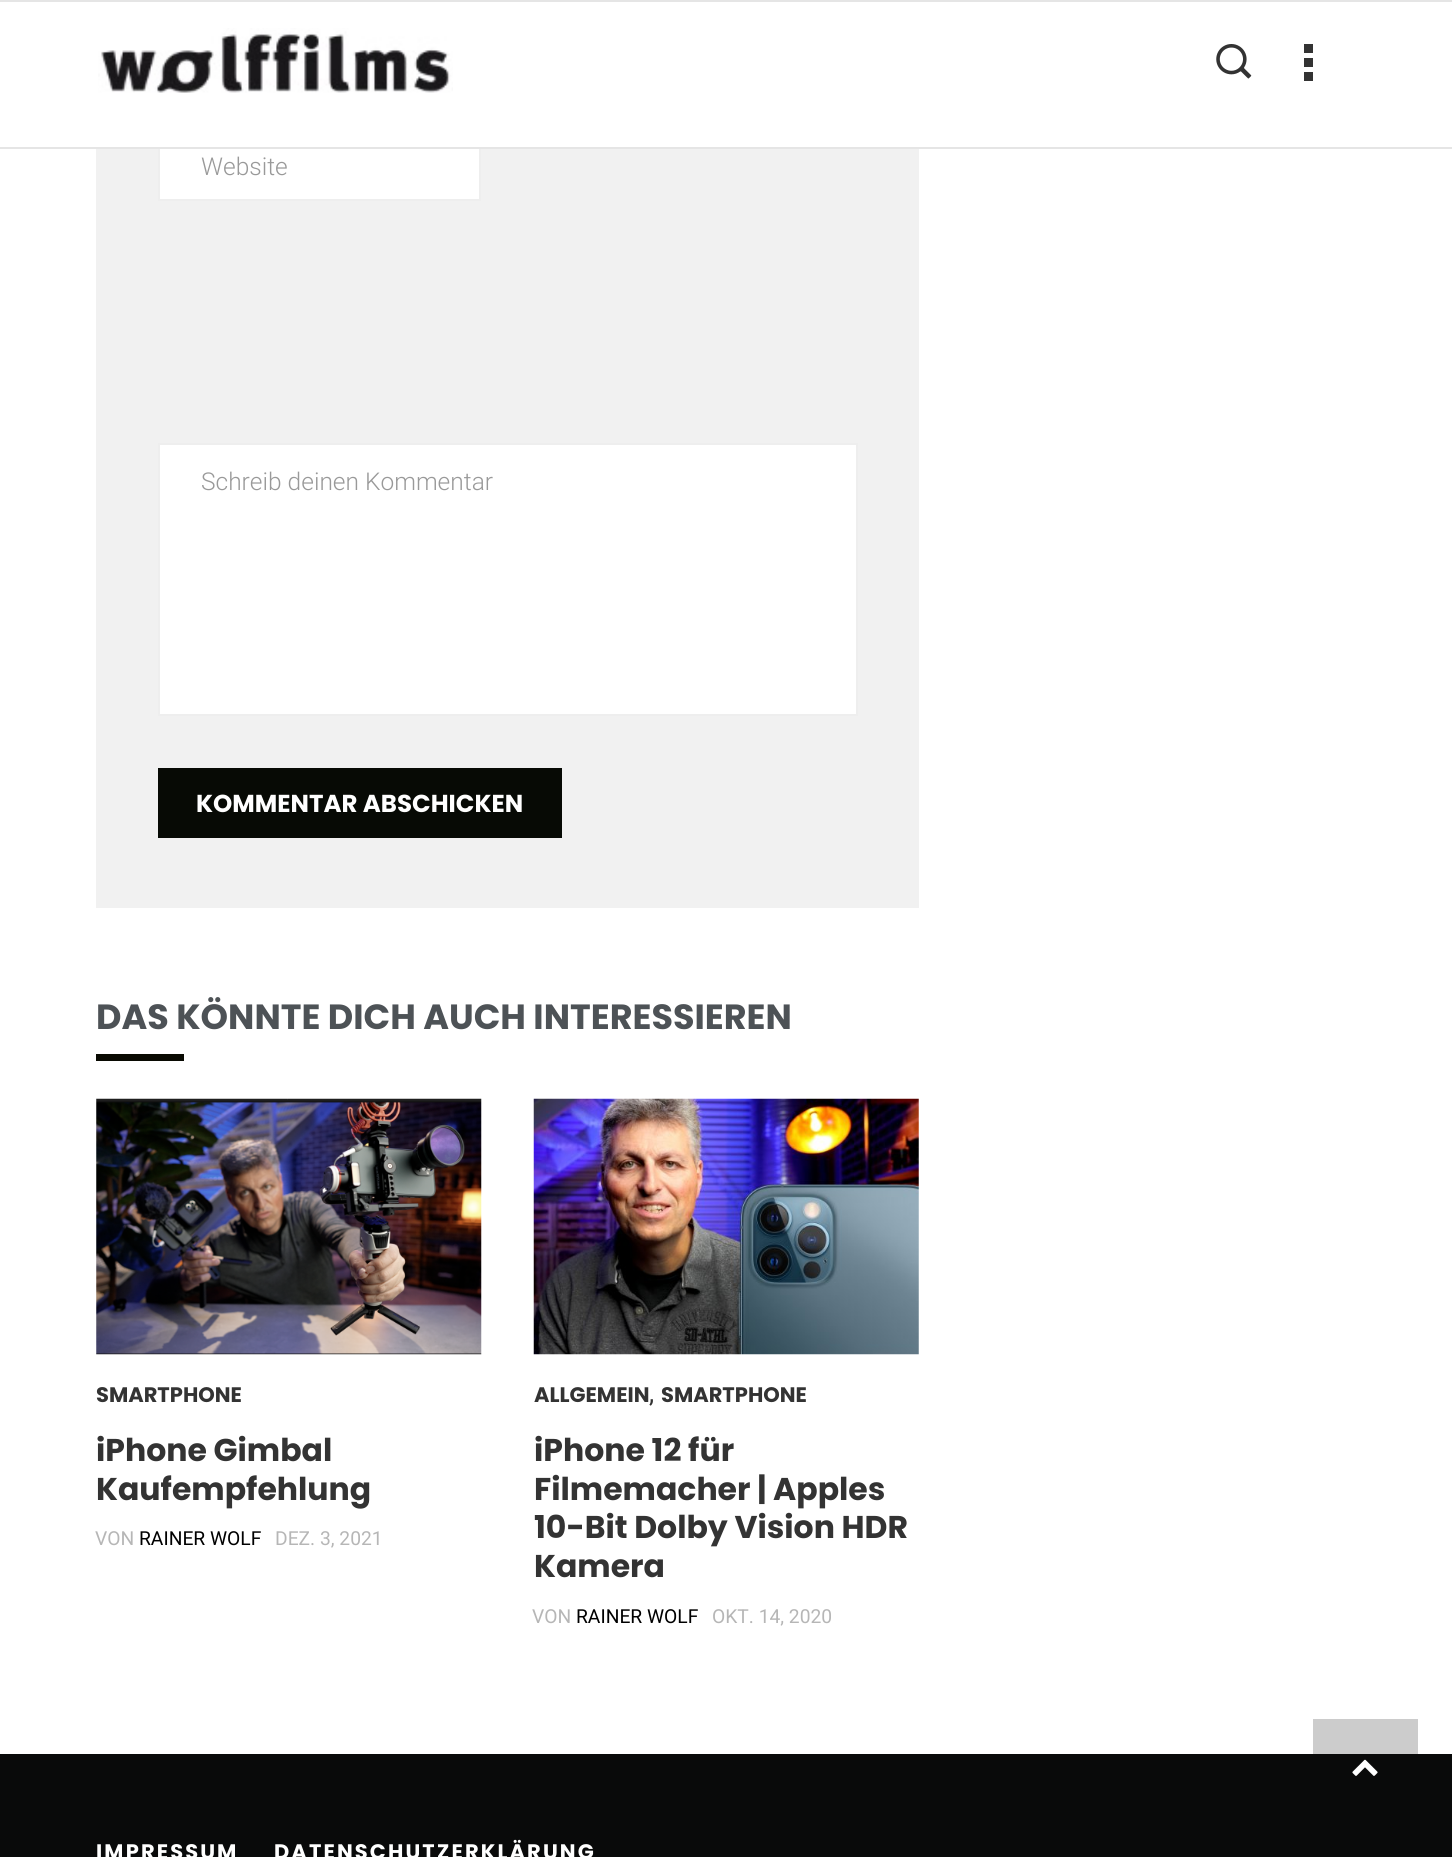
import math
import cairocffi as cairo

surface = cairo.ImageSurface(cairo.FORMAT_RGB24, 1452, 1857)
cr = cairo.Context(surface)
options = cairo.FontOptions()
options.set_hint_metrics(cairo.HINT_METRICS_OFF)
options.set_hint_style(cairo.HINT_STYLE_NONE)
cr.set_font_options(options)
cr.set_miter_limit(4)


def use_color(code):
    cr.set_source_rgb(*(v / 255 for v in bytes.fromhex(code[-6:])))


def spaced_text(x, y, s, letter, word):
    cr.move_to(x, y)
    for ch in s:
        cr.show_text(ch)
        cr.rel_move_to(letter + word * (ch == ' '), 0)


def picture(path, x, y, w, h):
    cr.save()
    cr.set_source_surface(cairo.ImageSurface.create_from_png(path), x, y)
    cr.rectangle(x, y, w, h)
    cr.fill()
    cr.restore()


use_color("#ffffff")
cr.paint()
use_color("#cccccc")
cr.rectangle(1313, 1719, 105, 35)
cr.fill()
use_color("#f1f1f1")
cr.rectangle(96, 149, 823, 759)
cr.fill()
use_color("#ffffff")
cr.rectangle(160, 149, 319, 50)
cr.fill()
cr.rectangle(159, 132, 321, 68)
use_color("#eeeeee")
cr.stroke()
use_color("#ffffff")
cr.rectangle(158, 131, 323, 16)
cr.fill()
use_color("#e5e5e5")
cr.rectangle(0, 0, 1452, 2)
cr.fill()
cr.rectangle(0, 147, 1452, 2)
cr.fill()
picture("img1.png", 98, 28, 355, 65)
picture("img2.png", 1216, 44, 36, 35)
use_color("#333333")
cr.rectangle(1304, 58, 9, 9)
cr.fill()
cr.rectangle(1304, 44, 9, 9)
cr.fill()
cr.rectangle(1304, 72, 9, 9)
cr.fill()
cr.select_font_face("Roboto Light")
cr.set_font_size(24.5)
use_color("#999999")
cr.move_to(201, 175)
cr.show_text("Website")
use_color("#ffffff")
cr.rectangle(159, 444, 698, 271)
cr.fill_preserve()
use_color("#eeeeee")
cr.stroke()
use_color("#999999")
cr.move_to(201, 490)
cr.show_text("Schreib deinen Kommentar")
use_color("#070a05")
cr.rectangle(158, 768, 404, 70)
cr.fill()
cr.select_font_face("Poppins", cairo.FONT_SLANT_NORMAL, cairo.FONT_WEIGHT_BOLD)
use_color("#ffffff")
cr.move_to(196, 812)
cr.show_text("KOMMENTAR ABSCHICKEN")
cr.set_font_size(35)
use_color("#4d5256")
cr.move_to(96, 1029)
cr.show_text("DAS KÖNNTE DICH AUCH INTERESSIEREN")
use_color("#090a02")
cr.rectangle(96, 1054, 88, 7)
cr.fill()
picture("img3.png", 96, 1098, 386, 257)
cr.set_font_size(21)
use_color("#333333")
cr.move_to(96, 1402)
cr.show_text("SMARTPHONE")
cr.set_font_size(31.5)
cr.move_to(96, 1461)
cr.show_text("iPhone Gimbal")
cr.move_to(96, 1500)
cr.show_text("Kaufempfehlung")
cr.select_font_face("Roboto")
cr.set_font_size(19.25)
use_color("#b6b6b6")
cr.move_to(95, 1545)
cr.show_text("VON")
use_color("#000000")
cr.move_to(139, 1545)
cr.show_text("RAINER WOLF")
use_color("#b6b6b6")
cr.move_to(275, 1545)
cr.show_text("DEZ. 3, 2021")
picture("img4.png", 533, 1098, 386, 257)
cr.select_font_face("Poppins", cairo.FONT_SLANT_NORMAL, cairo.FONT_WEIGHT_BOLD)
cr.set_font_size(21)
use_color("#333333")
cr.move_to(534, 1402)
cr.show_text("ALLGEMEIN")
cr.select_font_face("Roboto")
cr.set_font_size(26)
cr.move_to(649, 1402)
cr.show_text(",")
cr.select_font_face("Poppins", cairo.FONT_SLANT_NORMAL, cairo.FONT_WEIGHT_BOLD)
cr.set_font_size(21)
cr.move_to(661, 1402)
cr.show_text("SMARTPHONE")
cr.set_font_size(31.5)
cr.move_to(534, 1461)
cr.show_text("iPhone 12 für")
cr.move_to(534, 1500)
cr.show_text("Filmemacher | Apples")
cr.move_to(534, 1538)
cr.show_text("10-Bit Dolby Vision HDR")
cr.move_to(534, 1577)
cr.show_text("Kamera")
cr.select_font_face("Roboto")
cr.set_font_size(19.25)
use_color("#b6b6b6")
cr.move_to(532, 1623)
cr.show_text("VON")
use_color("#000000")
cr.move_to(576, 1623)
cr.show_text("RAINER WOLF")
use_color("#b6b6b6")
cr.move_to(712, 1623)
cr.show_text("OKT. 14, 2020")
use_color("#090a0a")
cr.rectangle(0, 1754, 1452, 103)
cr.fill()
cr.select_font_face("Poppins", cairo.FONT_SLANT_NORMAL, cairo.FONT_WEIGHT_BOLD)
cr.set_font_size(21)
use_color("#ffffff")
spaced_text(96, 1859, "IMPRESSUM", 2.1, 0)
spaced_text(274, 1859, "DATENSCHUTZERKLÄRUNG", 2.1, 0)
picture("img5.png", 1352, 1759, 26, 17)
surface.write_to_png("result.png")
